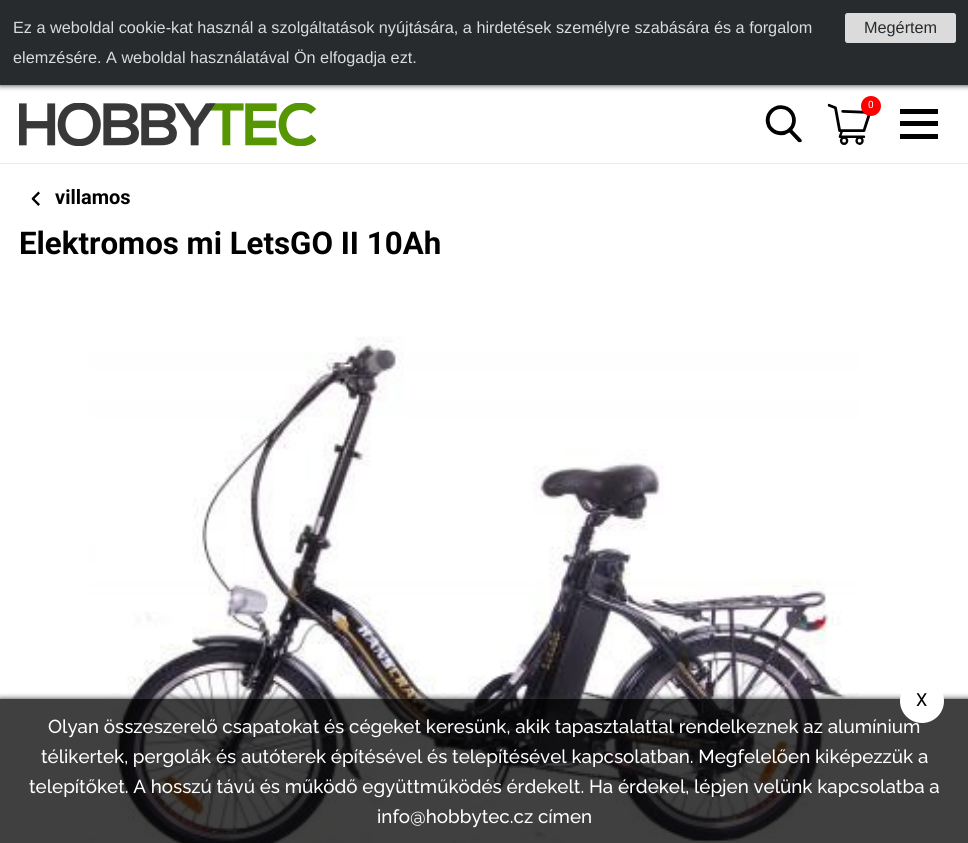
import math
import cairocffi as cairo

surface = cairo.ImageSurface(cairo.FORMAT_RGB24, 968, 843)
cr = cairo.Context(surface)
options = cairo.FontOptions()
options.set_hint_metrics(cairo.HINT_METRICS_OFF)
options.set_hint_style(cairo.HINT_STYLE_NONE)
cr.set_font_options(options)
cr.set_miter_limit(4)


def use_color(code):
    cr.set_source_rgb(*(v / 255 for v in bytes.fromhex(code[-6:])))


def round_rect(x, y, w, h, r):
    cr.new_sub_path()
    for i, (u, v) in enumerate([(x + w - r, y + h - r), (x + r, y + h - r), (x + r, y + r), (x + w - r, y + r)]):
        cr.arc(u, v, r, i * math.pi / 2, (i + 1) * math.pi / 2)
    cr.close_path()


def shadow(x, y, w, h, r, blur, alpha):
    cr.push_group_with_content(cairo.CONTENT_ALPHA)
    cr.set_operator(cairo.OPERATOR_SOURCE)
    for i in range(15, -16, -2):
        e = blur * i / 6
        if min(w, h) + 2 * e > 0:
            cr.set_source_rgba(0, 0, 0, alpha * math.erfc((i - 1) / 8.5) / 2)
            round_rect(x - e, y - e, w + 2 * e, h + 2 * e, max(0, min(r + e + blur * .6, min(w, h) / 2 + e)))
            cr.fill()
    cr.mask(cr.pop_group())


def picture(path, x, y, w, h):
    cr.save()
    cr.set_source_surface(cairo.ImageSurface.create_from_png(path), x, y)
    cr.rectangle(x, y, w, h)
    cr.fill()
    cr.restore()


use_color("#ffffff")
cr.paint()
use_color("#282b2d")
shadow(0, 0, 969, 85, 0, 3, 1)
use_color("#282b2d")
cr.rectangle(0, 0, 968, 85)
cr.fill()
cr.select_font_face("Liberation Sans")
cr.set_font_size(16.25)
use_color("#dbdbdb")
cr.move_to(13, 33)
cr.show_text("Ez a weboldal cookie-kat használ a szolgáltatások nyújtására, a hirdetések személyre szabására és a forgalom")
cr.move_to(13, 63)
cr.show_text("elemzésére. A weboldal használatával Ön elfogadja ezt.")
round_rect(845, 13, 111, 30, 2.5)
cr.fill()
use_color("#282b2d")
cr.move_to(864, 33)
cr.show_text("Megértem")
use_color("#ebebeb")
cr.rectangle(0, 163, 968, 1)
cr.fill()
picture("img1.png", 19, 103, 297, 43)
picture("img2.png", 765, 105, 37, 38)
picture("img3.png", 827, 103, 44, 42)
use_color("#ff0000")
cr.arc(871, 106, 10, 0, 2 * math.pi)
cr.fill()
cr.select_font_face("Roboto")
cr.set_font_size(10)
use_color("#ffffff")
cr.move_to(868, 108)
cr.show_text("0")
use_color("#000000")
cr.rectangle(900, 121, 38, 5)
cr.fill()
cr.rectangle(900, 109, 38, 5)
cr.fill()
cr.rectangle(900, 134, 38, 5)
cr.fill()
picture("img4.png", 31, 191, 9, 15)
cr.select_font_face("Roboto", cairo.FONT_SLANT_NORMAL, cairo.FONT_WEIGHT_BOLD)
cr.set_font_size(20)
cr.move_to(55, 204)
cr.show_text("villamos")
cr.set_font_size(31.25)
cr.move_to(19, 254)
cr.show_text("Elektromos mi LetsGO II 10Ah")
picture("img5.png", 89, 336, 769, 507)
cr.save()
cr.rectangle(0, 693, 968, 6)
cr.clip()
use_color("#282b2d")
shadow(0, 699, 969, 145, 0, 3, 1)
cr.restore()
cr.set_source_rgba(0, 0, 0, 0.75)
cr.rectangle(0, 699, 968, 144)
cr.fill()
use_color("#ffffff")
cr.arc(922, 701, 22, 0, 2 * math.pi)
cr.fill()
cr.select_font_face("Roboto")
cr.set_font_size(18)
use_color("#000000")
cr.move_to(916, 706)
cr.show_text("X")
cr.select_font_face("Raleway Medium")
cr.set_font_size(18.75)
use_color("#ffffff")
cr.move_to(48, 733)
cr.show_text("Olyan összeszerelő csapatokat és cégeket keresünk, akik tapasztalattal rendelkeznek az alumínium")
cr.move_to(41, 763)
cr.show_text("télikertek, pergolák és autóterek építésével és telepítésével kapcsolatban. Megfelelően kiképezzük a")
cr.move_to(29, 793)
cr.show_text("telepítőket. A hosszú távú és működő együttműködés érdekelt. Ha érdekel, lépjen velünk kapcsolatba a")
cr.move_to(377, 823)
cr.show_text("info@hobbytec.cz címen")
surface.write_to_png("result.png")
